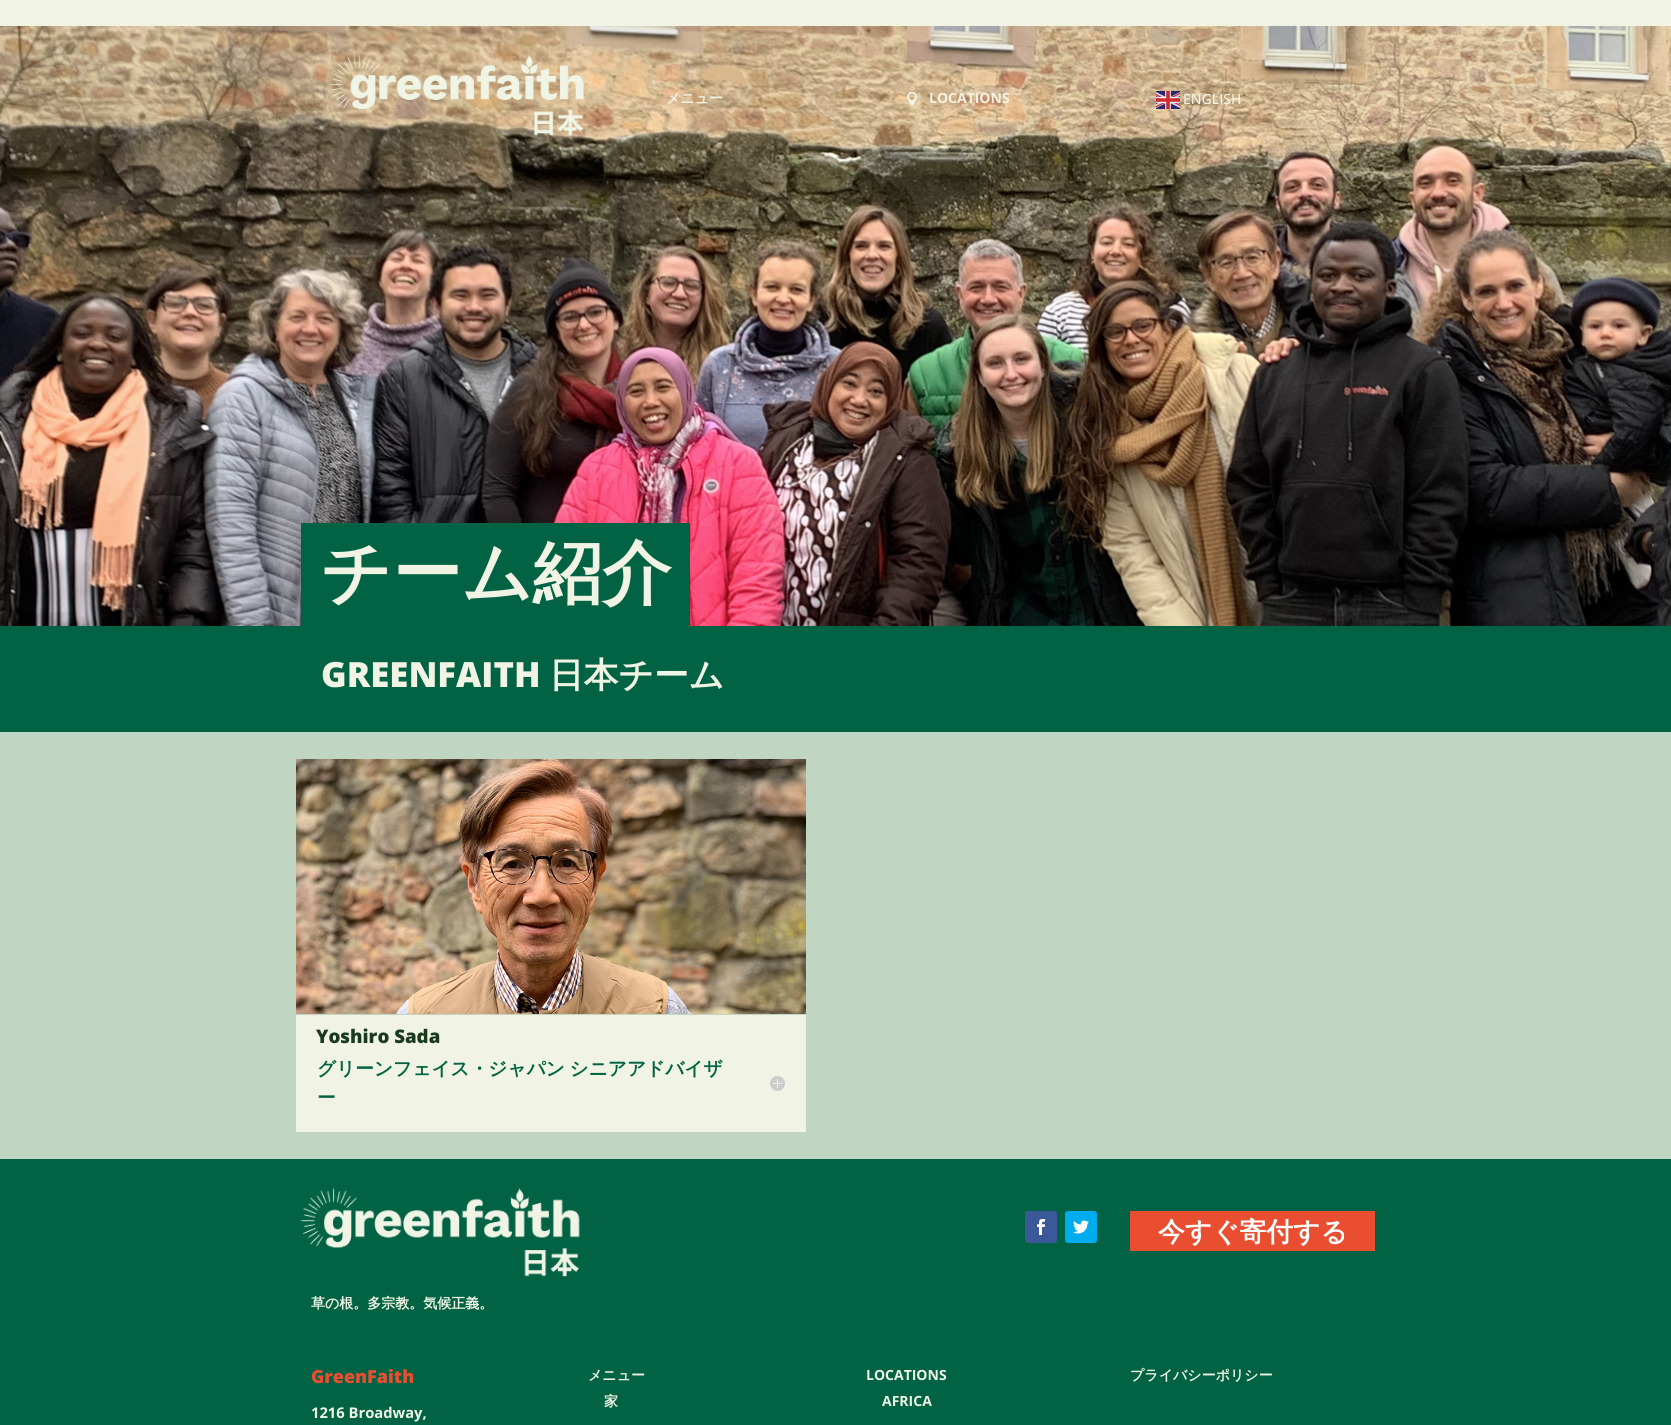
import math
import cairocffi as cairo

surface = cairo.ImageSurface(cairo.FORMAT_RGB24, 1671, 1425)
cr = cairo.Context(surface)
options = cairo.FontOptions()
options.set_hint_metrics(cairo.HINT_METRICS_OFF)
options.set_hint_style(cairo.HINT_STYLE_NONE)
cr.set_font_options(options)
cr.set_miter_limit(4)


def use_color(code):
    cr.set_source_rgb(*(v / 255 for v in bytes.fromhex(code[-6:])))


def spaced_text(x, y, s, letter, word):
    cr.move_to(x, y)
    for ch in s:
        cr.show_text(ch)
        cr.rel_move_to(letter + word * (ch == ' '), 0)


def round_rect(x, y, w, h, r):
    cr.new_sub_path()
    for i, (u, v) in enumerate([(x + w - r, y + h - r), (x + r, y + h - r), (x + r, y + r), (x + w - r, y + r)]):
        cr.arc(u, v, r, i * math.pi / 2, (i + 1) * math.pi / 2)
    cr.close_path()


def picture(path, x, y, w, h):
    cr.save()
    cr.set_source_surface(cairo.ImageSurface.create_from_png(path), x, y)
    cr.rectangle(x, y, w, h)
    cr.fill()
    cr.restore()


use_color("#f1f4e4")
cr.paint()
picture("img4.png", 0, 26, 1671, 600)
picture("img1.png", 329, 54, 255, 82)
cr.select_font_face("WenQuanYi Zen Hei", cairo.FONT_SLANT_NORMAL, cairo.FONT_WEIGHT_BOLD)
cr.set_font_size(14)
use_color("#f1f4e4")
cr.move_to(666, 103)
cr.show_text("メニュー")
picture("img2.png", 907, 91, 10, 15)
cr.select_font_face("Open Sans", cairo.FONT_SLANT_NORMAL, cairo.FONT_WEIGHT_BOLD)
cr.move_to(929, 103)
cr.show_text("LOCATIONS")
picture("img3.png", 1156, 91, 24, 18)
cr.select_font_face("Open Sans Medium")
cr.move_to(1183, 104)
cr.show_text("ENGLISH")
use_color("#016344")
cr.rectangle(321, 523, 369, 103)
cr.fill()
cr.select_font_face("WenQuanYi Zen Hei", cairo.FONT_SLANT_NORMAL, cairo.FONT_WEIGHT_BOLD)
cr.set_font_size(69.5)
use_color("#f1f4e4")
cr.move_to(321, 597)
cr.show_text("チーム紹介")
use_color("#016344")
cr.rectangle(301, 523, 20, 103)
cr.fill()
cr.rectangle(0, 626, 1671, 106)
cr.fill()
cr.select_font_face("Open Sans ExtraBold")
cr.set_font_size(34.75)
use_color("#f1f4e4")
cr.move_to(321, 687)
cr.show_text("GREENFAITH")
cr.select_font_face("WenQuanYi Zen Hei", cairo.FONT_SLANT_NORMAL, cairo.FONT_WEIGHT_BOLD)
cr.move_to(549, 687)
cr.show_text("日本チーム")
use_color("#c0d5c2")
cr.rectangle(0, 732, 1671, 427)
cr.fill()
picture("img5.png", 296, 759, 510, 255)
use_color("#f1f4e4")
cr.rectangle(296, 1015, 510, 117)
cr.fill()
cr.select_font_face("Open Sans ExtraBold")
cr.set_font_size(18.7)
use_color("#193a1d")
cr.move_to(316, 1043)
cr.show_text("Yoshiro Sada")
cr.select_font_face("WenQuanYi Zen Hei", cairo.FONT_SLANT_NORMAL, cairo.FONT_WEIGHT_BOLD)
use_color("#016344")
spaced_text(317, 1075, "グリーンフェイス・ジャパン シニアアドバイザ", 0, -1)
picture("img6.png", 770, 1076, 15, 15)
cr.move_to(317, 1104)
cr.show_text("ー")
cr.rectangle(0, 1159, 1671, 266)
cr.fill()
use_color("#3b5998")
round_rect(1025, 1211, 32, 32, 3)
cr.fill()
picture("img7.png", 1037, 1219, 8, 16)
use_color("#00aced")
round_rect(1065, 1211, 32, 32, 3)
cr.fill()
picture("img8.png", 1073, 1220, 16, 14)
use_color("#e94e30")
cr.rectangle(1130, 1211, 245, 40)
cr.fill()
cr.set_font_size(26.75)
use_color("#ffffff")
cr.move_to(1158, 1241)
cr.show_text("今すぐ寄付する")
picture("img9.png", 300, 1187, 280, 90)
cr.set_font_size(14)
use_color("#f1f4e4")
cr.move_to(311, 1308)
cr.show_text("草の根。多宗教。気候正義。")
cr.select_font_face("Open Sans ExtraBold")
cr.set_font_size(18)
use_color("#e94e30")
cr.move_to(311, 1383)
cr.show_text("GreenFaith")
cr.select_font_face("Open Sans", cairo.FONT_SLANT_NORMAL, cairo.FONT_WEIGHT_BOLD)
cr.set_font_size(14.75)
use_color("#f1f4e4")
cr.move_to(311, 1418)
cr.show_text("1216 Broadway,")
cr.select_font_face("WenQuanYi Zen Hei", cairo.FONT_SLANT_NORMAL, cairo.FONT_WEIGHT_BOLD)
cr.set_font_size(14)
cr.move_to(588, 1380)
cr.show_text("メニュー")
cr.move_to(604, 1406)
cr.show_text("家")
cr.select_font_face("Open Sans", cairo.FONT_SLANT_NORMAL, cairo.FONT_WEIGHT_BOLD)
cr.move_to(866, 1380)
cr.show_text("LOCATIONS")
cr.move_to(882, 1406)
cr.show_text("AFRICA")
cr.select_font_face("WenQuanYi Zen Hei", cairo.FONT_SLANT_NORMAL, cairo.FONT_WEIGHT_BOLD)
cr.move_to(1130, 1380)
cr.show_text("プライバシーポリシー")
surface.write_to_png("result.png")
